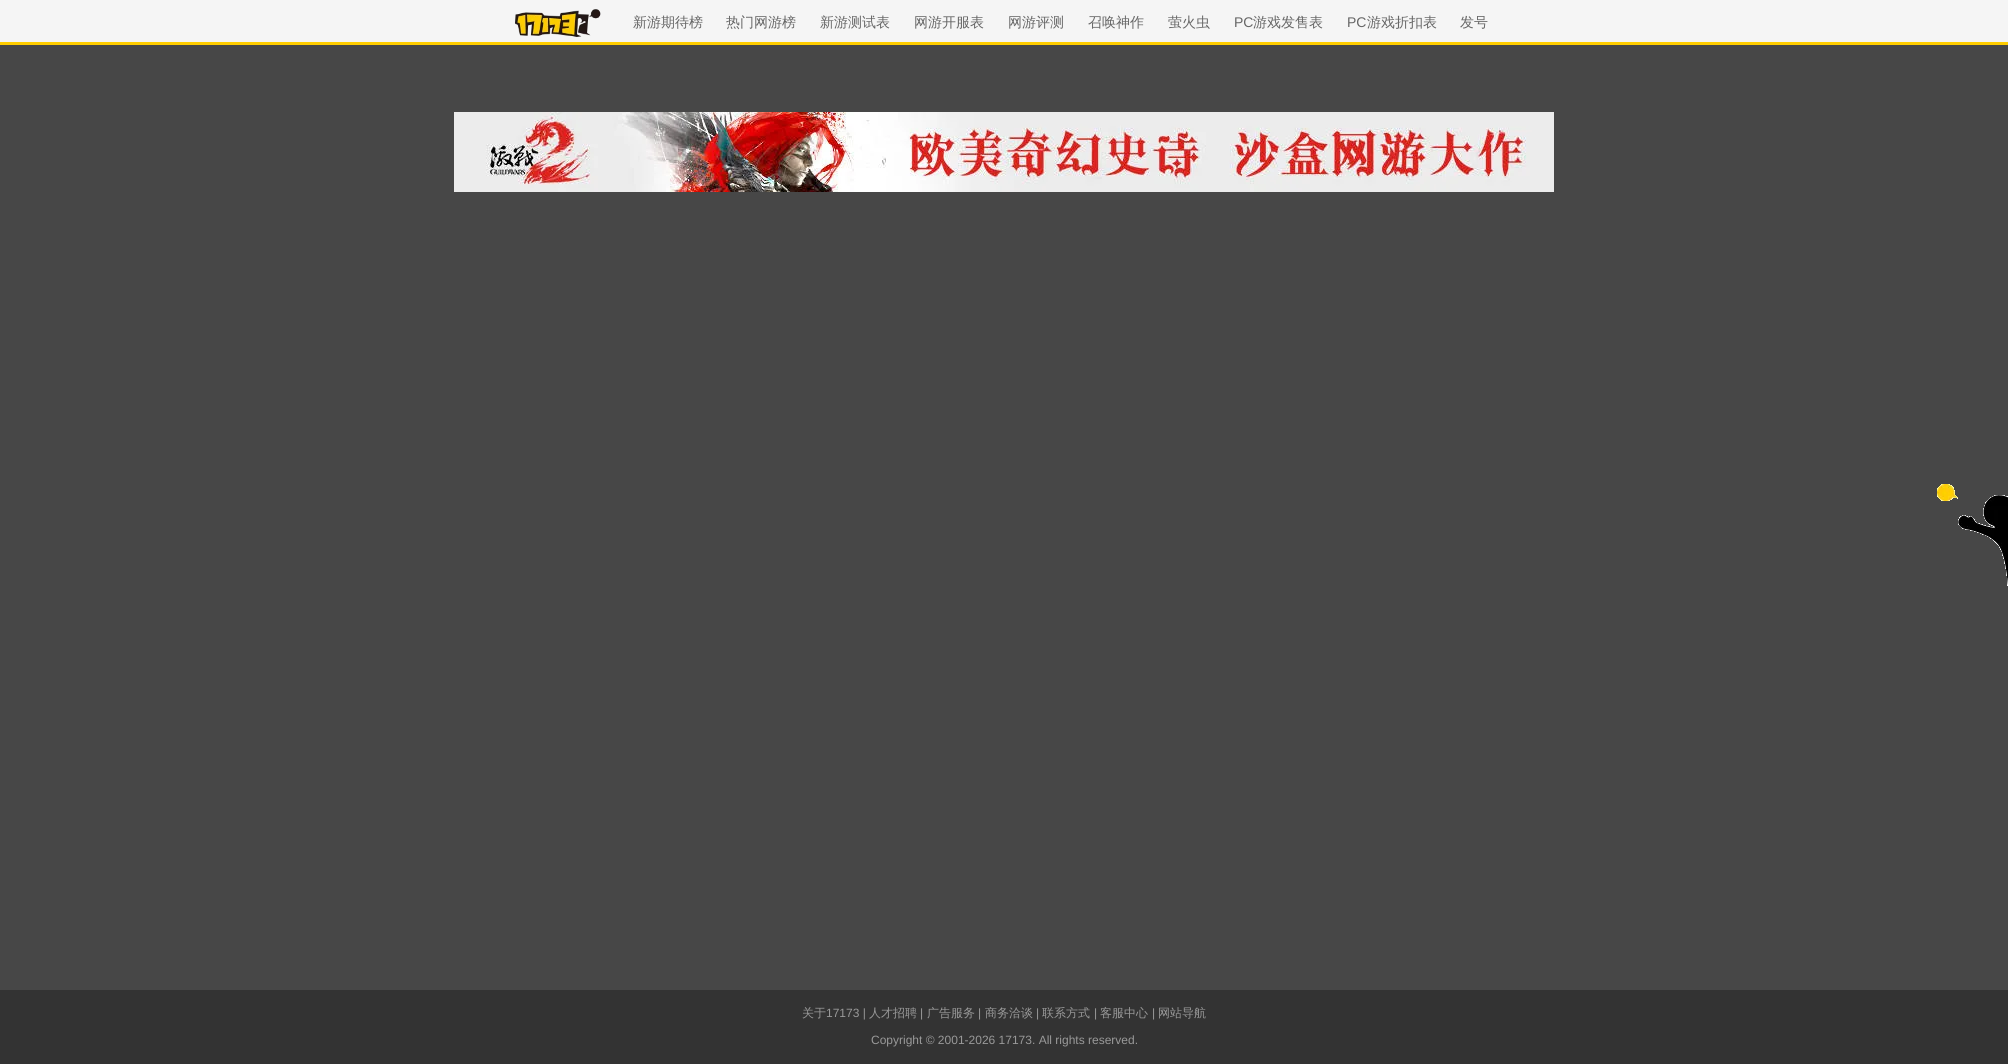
import math
import cairocffi as cairo

surface = cairo.ImageSurface(cairo.FORMAT_RGB24, 2008, 1064)
cr = cairo.Context(surface)
options = cairo.FontOptions()
options.set_hint_metrics(cairo.HINT_METRICS_OFF)
options.set_hint_style(cairo.HINT_STYLE_NONE)
cr.set_font_options(options)
cr.set_miter_limit(4)


def use_color(code):
    cr.set_source_rgb(*(v / 255 for v in bytes.fromhex(code[-6:])))


def picture(path, x, y, w, h):
    cr.save()
    cr.set_source_surface(cairo.ImageSurface.create_from_png(path), x, y)
    cr.rectangle(x, y, w, h)
    cr.fill()
    cr.restore()


use_color("#474747")
cr.paint()
use_color("#f5f5f5")
cr.rectangle(0, 0, 2008, 42)
cr.fill()
use_color("#ffcd00")
cr.rectangle(0, 42, 2008, 3)
cr.fill()
picture("img1.png", 515, 9, 86, 28)
cr.select_font_face("WenQuanYi Zen Hei Medium")
cr.set_font_size(14)
use_color("#666666")
cr.move_to(633, 27)
cr.show_text("新游期待榜")
cr.move_to(726, 27)
cr.show_text("热门网游榜")
cr.move_to(820, 27)
cr.show_text("新游测试表")
cr.move_to(914, 27)
cr.show_text("网游开服表")
cr.move_to(1008, 27)
cr.show_text("网游评测")
cr.move_to(1088, 27)
cr.show_text("召唤神作")
cr.move_to(1168, 27)
cr.show_text("萤火虫")
cr.select_font_face("Liberation Sans")
cr.move_to(1234, 27)
cr.show_text("PC")
cr.select_font_face("WenQuanYi Zen Hei Medium")
cr.move_to(1253, 27)
cr.show_text("游戏发售表")
cr.select_font_face("Liberation Sans")
cr.move_to(1347, 27)
cr.show_text("PC")
cr.select_font_face("WenQuanYi Zen Hei Medium")
cr.move_to(1367, 27)
cr.show_text("游戏折扣表")
cr.move_to(1460, 27)
cr.show_text("发号")
picture("img2.png", 454, 112, 1100, 80)
picture("img3.png", 1937, 484, 71, 102)
use_color("#333333")
cr.rectangle(0, 990, 2008, 74)
cr.fill()
cr.set_font_size(12)
use_color("#999999")
cr.move_to(802, 1017)
cr.show_text("关于")
cr.select_font_face("Liberation Sans")
cr.move_to(826, 1017)
cr.show_text("17173 |")
cr.select_font_face("WenQuanYi Zen Hei Medium")
cr.move_to(869, 1017)
cr.show_text("人才招聘")
cr.select_font_face("Liberation Sans")
cr.move_to(920, 1017)
cr.show_text("|")
cr.select_font_face("WenQuanYi Zen Hei Medium")
cr.move_to(927, 1017)
cr.show_text("广告服务")
cr.select_font_face("Liberation Sans")
cr.move_to(978, 1017)
cr.show_text("|")
cr.select_font_face("WenQuanYi Zen Hei Medium")
cr.move_to(985, 1017)
cr.show_text("商务洽谈")
cr.select_font_face("Liberation Sans")
cr.move_to(1036, 1017)
cr.show_text("|")
cr.select_font_face("WenQuanYi Zen Hei Medium")
cr.move_to(1042, 1017)
cr.show_text("联系方式")
cr.select_font_face("Liberation Sans")
cr.move_to(1094, 1017)
cr.show_text("|")
cr.select_font_face("WenQuanYi Zen Hei Medium")
cr.move_to(1100, 1017)
cr.show_text("客服中心")
cr.select_font_face("Liberation Sans")
cr.move_to(1152, 1017)
cr.show_text("|")
cr.select_font_face("WenQuanYi Zen Hei Medium")
cr.move_to(1158, 1017)
cr.show_text("网站导航")
cr.select_font_face("Liberation Sans")
cr.move_to(871, 1044)
cr.show_text("Copyright © 2001-2026 17173. All rights reserved.")
surface.write_to_png("result.png")
